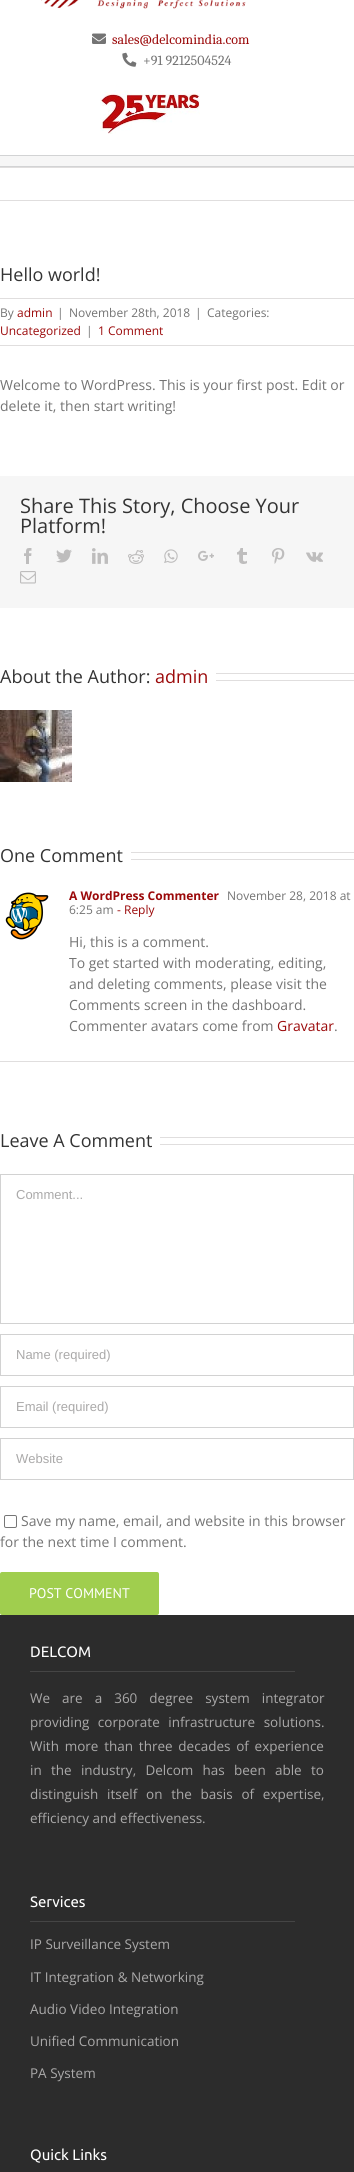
import math
import cairocffi as cairo

surface = cairo.ImageSurface(cairo.FORMAT_RGB24, 354, 2172)
cr = cairo.Context(surface)
options = cairo.FontOptions()
options.set_hint_metrics(cairo.HINT_METRICS_OFF)
options.set_hint_style(cairo.HINT_STYLE_NONE)
cr.set_font_options(options)
cr.set_miter_limit(4)


def use_color(code):
    cr.set_source_rgb(*(v / 255 for v in bytes.fromhex(code[-6:])))


def spaced_text(x, y, s, letter, word):
    cr.move_to(x, y)
    for ch in s:
        cr.show_text(ch)
        cr.rel_move_to(letter + word * (ch == ' '), 0)


def round_rect(x, y, w, h, r):
    cr.new_sub_path()
    for i, (u, v) in enumerate([(x + w - r, y + h - r), (x + r, y + h - r), (x + r, y + r), (x + w - r, y + r)]):
        cr.arc(u, v, r, i * math.pi / 2, (i + 1) * math.pi / 2)
    cr.close_path()


def picture(path, x, y, w, h):
    cr.save()
    cr.set_source_surface(cairo.ImageSurface.create_from_png(path), x, y)
    cr.rectangle(x, y, w, h)
    cr.fill()
    cr.restore()


use_color("#ffffff")
cr.paint()
picture("img1.png", 41, 0, 205, 9)
picture("img2.png", 92, 33, 14, 11)
cr.select_font_face("Caladea")
cr.set_font_size(14)
use_color("#9b090a")
cr.move_to(112, 44)
cr.show_text("sales@delcomindia.com")
picture("img3.png", 122, 52, 15, 15)
use_color("#747474")
cr.move_to(143, 65)
cr.show_text("+91 9212504524")
picture("img4.png", 100, 90, 100, 44)
use_color("#f6f6f6")
cr.rectangle(0, 156, 354, 10)
cr.fill()
use_color("#d2d3d4")
cr.rectangle(0, 155, 354, 1)
cr.fill()
cr.rectangle(0, 166, 354, 1)
cr.fill()
use_color("#e0dede")
cr.rectangle(0, 167, 354, 1)
cr.fill()
cr.rectangle(0, 200, 354, 1)
cr.fill()
cr.select_font_face("Open Sans")
cr.set_font_size(18)
use_color("#333333")
cr.move_to(0, 281)
cr.show_text("Hello world!")
use_color("#e0dede")
cr.rectangle(0, 298, 354, 1)
cr.fill()
cr.rectangle(0, 345, 354, 1)
cr.fill()
cr.set_font_size(12)
use_color("#747474")
cr.move_to(0, 317)
cr.show_text("By")
use_color("#9b090a")
cr.move_to(17, 317)
cr.show_text("admin")
use_color("#747474")
cr.move_to(57, 317)
cr.show_text("|")
cr.move_to(69, 317)
cr.show_text("November 28th, 2018")
cr.move_to(195, 317)
cr.show_text("|")
cr.move_to(207, 317)
cr.show_text("Categories:")
use_color("#9b090a")
cr.move_to(0, 335)
cr.show_text("Uncategorized")
use_color("#747474")
cr.move_to(86, 335)
cr.show_text("|")
use_color("#9b090a")
cr.move_to(98, 335)
cr.show_text("1 Comment")
cr.set_font_size(14)
use_color("#747474")
cr.move_to(0, 390)
cr.show_text("Welcome to WordPress. This is your first post. Edit or")
cr.move_to(0, 411)
cr.show_text("delete it, then start writing!")
use_color("#f6f6f6")
cr.rectangle(0, 476, 354, 132)
cr.fill()
cr.set_font_size(20)
use_color("#333333")
cr.move_to(20, 513)
cr.show_text("Share This Story, Choose Your")
cr.move_to(20, 533)
cr.show_text("Platform!")
picture("img5.png", 24, 548, 8, 16)
picture("img6.png", 56, 549, 16, 14)
picture("img7.png", 92, 548, 16, 16)
picture("img8.png", 128, 550, 16, 14)
picture("img9.png", 164, 549, 14, 14)
picture("img10.png", 198, 550, 16, 11)
picture("img11.png", 237, 548, 10, 16)
picture("img12.png", 271, 548, 14, 16)
picture("img13.png", 306, 552, 17, 10)
picture("img14.png", 20, 571, 16, 13)
cr.set_font_size(18)
cr.move_to(0, 683)
cr.show_text("About the Author:")
use_color("#9b090a")
cr.move_to(155, 683)
cr.show_text("admin")
use_color("#e0dede")
cr.rectangle(216, 673, 138, 1)
cr.fill()
cr.rectangle(216, 680, 138, 1)
cr.fill()
picture("img15.png", 0, 710, 72, 72)
use_color("#333333")
cr.move_to(0, 862)
cr.show_text("One Comment")
use_color("#e0dede")
cr.rectangle(131, 852, 223, 1)
cr.fill()
cr.rectangle(131, 859, 223, 1)
cr.fill()
cr.rectangle(0, 1061, 354, 1)
cr.fill()
picture("img16.png", 5, 892, 44, 48)
cr.select_font_face("Open Sans", cairo.FONT_SLANT_NORMAL, cairo.FONT_WEIGHT_BOLD)
cr.set_font_size(12)
use_color("#9b090a")
cr.move_to(69, 900)
cr.show_text("A WordPress Commenter")
cr.select_font_face("Open Sans")
use_color("#747474")
cr.move_to(227, 900)
cr.show_text("November 28, 2018 at")
cr.move_to(69, 914)
cr.show_text("6:25 am")
use_color("#9b090a")
cr.move_to(117, 914)
cr.show_text("- Reply")
cr.set_font_size(14)
use_color("#747474")
cr.move_to(69, 947)
cr.show_text("Hi, this is a comment.")
cr.move_to(69, 968)
cr.show_text("To get started with moderating, editing,")
cr.move_to(69, 989)
cr.show_text("and deleting comments, please visit the")
cr.move_to(69, 1010)
cr.show_text("Comments screen in the dashboard.")
cr.move_to(69, 1031)
cr.show_text("Commenter avatars come from")
use_color("#9b090a")
cr.move_to(277, 1031)
cr.show_text("Gravatar")
use_color("#747474")
cr.move_to(334, 1031)
cr.show_text(".")
cr.set_font_size(18)
use_color("#333333")
cr.move_to(0, 1147)
cr.show_text("Leave A Comment")
use_color("#e0dede")
cr.rectangle(160, 1137, 194, 1)
cr.fill()
cr.rectangle(160, 1144, 194, 1)
cr.fill()
cr.rectangle(0.5, 1174.5, 353, 149)
use_color("#d2d2d2")
cr.set_line_width(1)
cr.stroke()
cr.select_font_face("Liberation Sans")
cr.set_font_size(13)
use_color("#aaa9a9")
cr.move_to(16, 1199)
cr.show_text("Comment...")
cr.rectangle(0.5, 1334.5, 353, 41)
use_color("#d2d2d2")
cr.stroke()
use_color("#aaa9a9")
cr.move_to(16, 1359)
cr.show_text("Name (required)")
cr.rectangle(0.5, 1386.5, 353, 41)
use_color("#d2d2d2")
cr.stroke()
use_color("#aaa9a9")
cr.move_to(16, 1411)
cr.show_text("Email (required)")
cr.rectangle(0.5, 1438.5, 353, 41)
use_color("#d2d2d2")
cr.stroke()
use_color("#aaa9a9")
cr.move_to(16, 1463)
cr.show_text("Website")
round_rect(4.5, 1515.5, 12, 12, 1.5)
use_color("#767676")
cr.stroke()
cr.select_font_face("Open Sans")
cr.set_font_size(14)
use_color("#747474")
cr.move_to(21, 1526)
cr.show_text("Save my name, email, and website in this browser")
cr.move_to(0, 1547)
cr.show_text("for the next time I comment.")
use_color("#a0ce4e")
round_rect(0, 1572, 159, 43, 2)
cr.fill()
cr.select_font_face("PT Sans")
use_color("#ffffff")
cr.move_to(29, 1598)
cr.show_text("POST COMMENT")
use_color("#2c2c2c")
cr.rectangle(0, 1615, 354, 557)
cr.fill()
use_color("#454545")
cr.rectangle(30, 1671, 265, 1)
cr.fill()
cr.select_font_face("Ubuntu")
cr.set_font_size(15)
use_color("#ffffff")
cr.move_to(30, 1657)
cr.show_text("DELCOM")
cr.select_font_face("Open Sans")
cr.set_font_size(13.5)
use_color("#aaa9a9")
spaced_text(30, 1703, "We are a 360 degree system integrator", 0, 8.5)
spaced_text(30, 1727, "providing corporate infrastructure solutions.", 0, 5)
spaced_text(30, 1751, "With more than three decades of experience", 0, 2.25)
spaced_text(30, 1775, "in the industry, Delcom has been able to", 0, 5.75)
spaced_text(30, 1799, "distinguish itself on the basis of expertise,", 0, 5.25)
cr.move_to(30, 1823)
cr.show_text("efficiency and effectiveness.")
use_color("#454545")
cr.rectangle(30, 1921, 265, 1)
cr.fill()
cr.select_font_face("Ubuntu")
cr.set_font_size(15)
use_color("#ffffff")
cr.move_to(30, 1907)
cr.show_text("Services")
cr.select_font_face("Open Sans")
cr.set_font_size(13.5)
use_color("#aaa9a9")
cr.move_to(30, 1949)
cr.show_text("IP Surveillance System")
cr.move_to(30, 1982)
cr.show_text("IT Integration & Networking")
cr.move_to(30, 2014)
cr.show_text("Audio Video Integration")
cr.move_to(30, 2046)
cr.show_text("Unified Communication")
cr.move_to(30, 2078)
cr.show_text("PA System")
cr.select_font_face("Ubuntu")
cr.set_font_size(15)
use_color("#ffffff")
cr.move_to(30, 2160)
cr.show_text("Quick Links")
surface.write_to_png("result.png")
